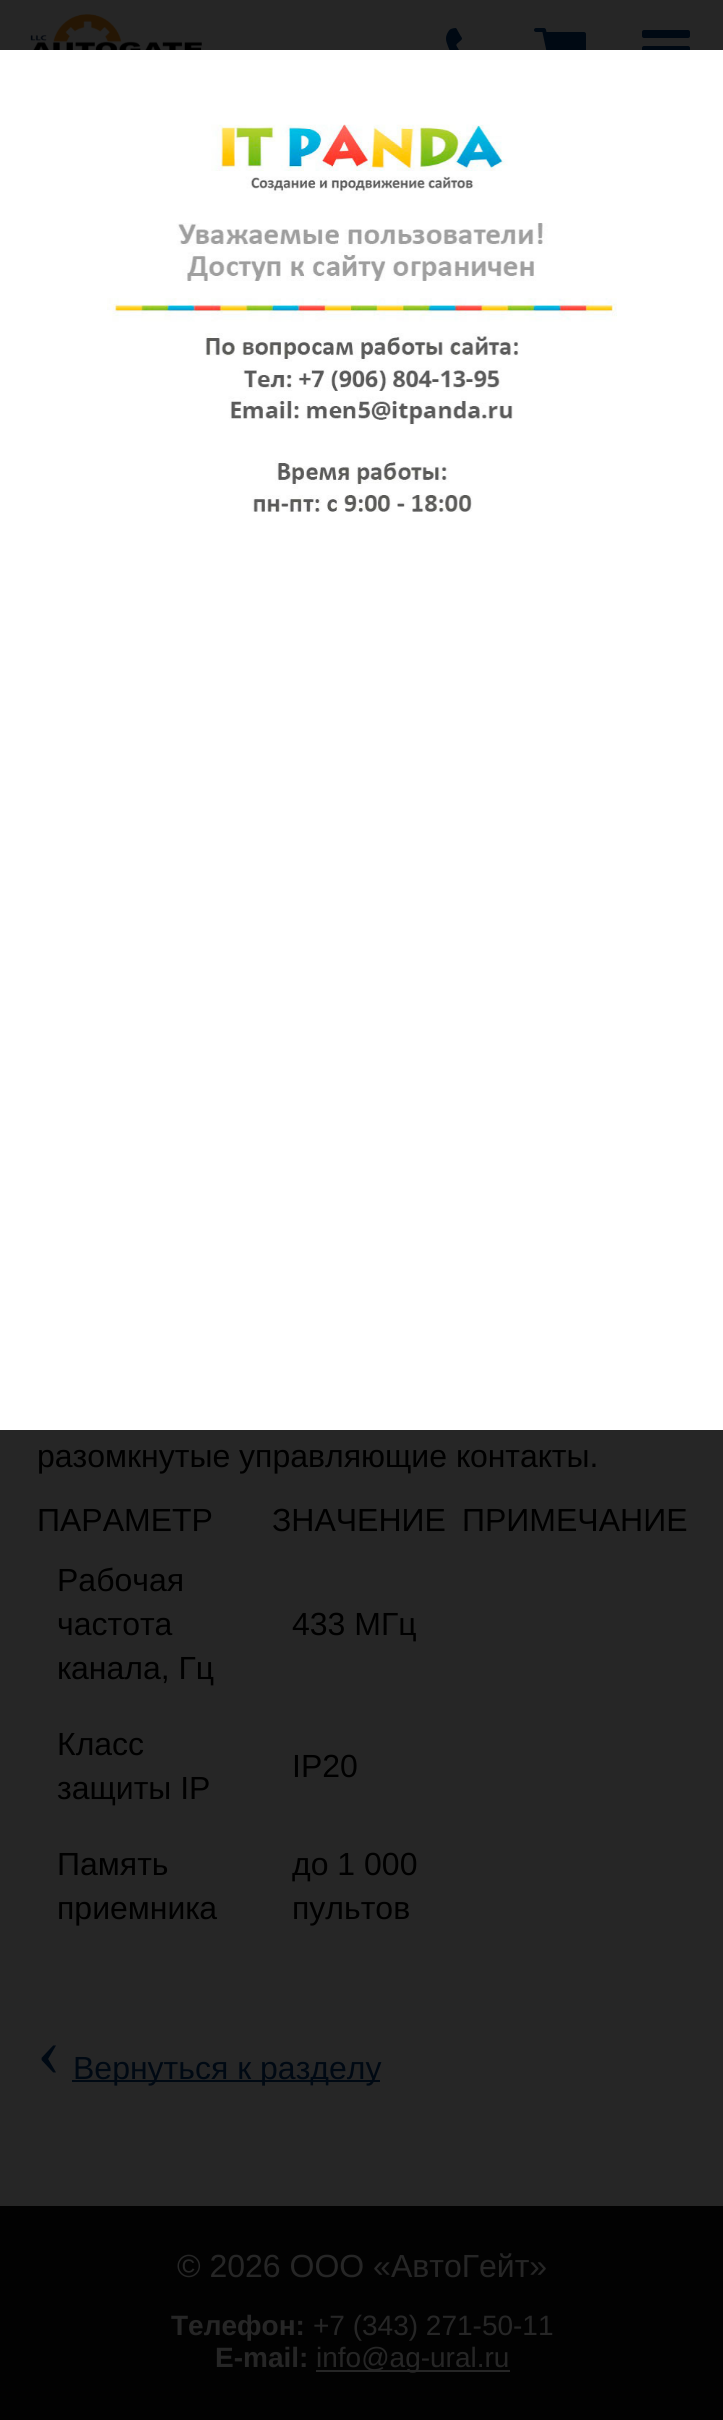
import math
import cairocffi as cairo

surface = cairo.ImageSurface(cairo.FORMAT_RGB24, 723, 2420)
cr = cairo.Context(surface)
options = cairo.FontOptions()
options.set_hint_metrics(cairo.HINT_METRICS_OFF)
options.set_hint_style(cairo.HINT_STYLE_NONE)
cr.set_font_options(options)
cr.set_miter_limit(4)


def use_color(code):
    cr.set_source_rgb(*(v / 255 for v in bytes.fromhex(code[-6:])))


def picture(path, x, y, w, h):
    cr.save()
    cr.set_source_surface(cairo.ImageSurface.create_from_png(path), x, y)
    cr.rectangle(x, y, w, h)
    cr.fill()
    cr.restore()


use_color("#262626")
cr.paint()
use_color("#ffffff")
cr.rectangle(0, 50, 723, 1380)
cr.fill()
picture("img1.png", 107, 124, 510, 388)
picture("img2.png", 30, 14, 172, 36)
picture("img3.png", 446, 28, 16, 22)
picture("img4.png", 534, 28, 52, 22)
picture("img5.png", 642, 30, 48, 20)
cr.select_font_face("Liberation Sans")
cr.set_font_size(32)
use_color("#000000")
cr.move_to(37, 1467)
cr.show_text("разомкнутые управляющие контакты.")
cr.move_to(37, 1531)
cr.show_text("ПАРАМЕТР")
cr.move_to(272, 1531)
cr.show_text("ЗНАЧЕНИЕ")
cr.move_to(462, 1531)
cr.show_text("ПРИМЕЧАНИЕ")
cr.move_to(57, 1591)
cr.show_text("Рабочая")
cr.move_to(57, 1635)
cr.show_text("частота")
cr.move_to(57, 1679)
cr.show_text("канала, Гц")
cr.move_to(292, 1635)
cr.show_text("433 МГц")
cr.move_to(57, 1755)
cr.show_text("Класс")
cr.move_to(57, 1799)
cr.show_text("защиты IP")
cr.move_to(292, 1777)
cr.show_text("IP20")
cr.move_to(57, 1875)
cr.show_text("Память")
cr.move_to(57, 1919)
cr.show_text("приемника")
cr.move_to(292, 1875)
cr.show_text("до 1 000")
cr.move_to(292, 1919)
cr.show_text("пультов")
cr.select_font_face("Liberation Serif")
cr.set_font_size(71)
use_color("#000913")
cr.move_to(37, 2075)
cr.show_text("‹")
cr.rectangle(72, 2080, 308, 2)
cr.fill()
cr.select_font_face("Liberation Sans")
cr.set_font_size(32)
cr.move_to(73, 2079)
cr.show_text("Вернуться к разделу")
use_color("#020202")
cr.rectangle(0, 2206, 723, 214)
cr.fill()
use_color("#262626")
cr.move_to(177, 2277)
cr.show_text("© 2026 ООО «АвтоГейт»")
cr.select_font_face("Liberation Sans", cairo.FONT_SLANT_NORMAL, cairo.FONT_WEIGHT_BOLD)
cr.set_font_size(28)
cr.move_to(171, 2335)
cr.show_text("Телефон:")
cr.select_font_face("Liberation Sans")
cr.move_to(313, 2335)
cr.show_text("+7 (343) 271-50-11")
cr.select_font_face("Liberation Sans", cairo.FONT_SLANT_NORMAL, cairo.FONT_WEIGHT_BOLD)
cr.move_to(215, 2367)
cr.show_text("E-mail:")
cr.rectangle(316, 2370, 194, 2)
cr.fill()
cr.select_font_face("Liberation Sans")
cr.move_to(316, 2367)
cr.show_text("info@ag-ural.ru")
surface.write_to_png("result.png")
